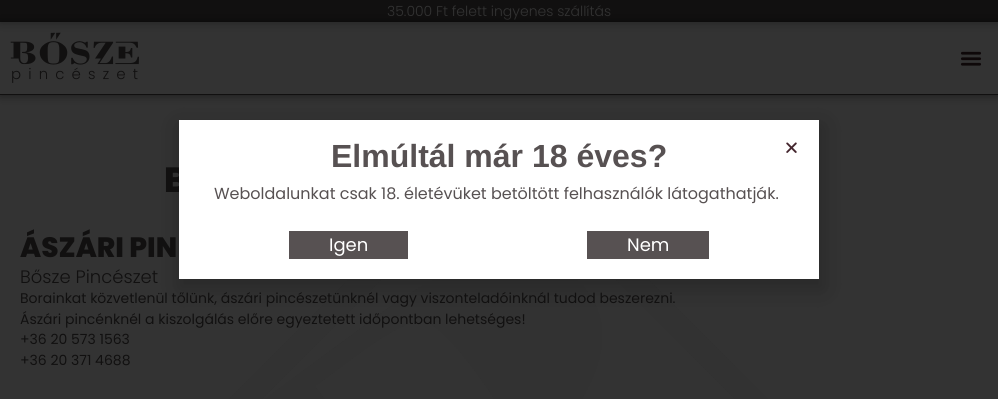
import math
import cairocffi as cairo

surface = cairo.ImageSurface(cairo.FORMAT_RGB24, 998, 399)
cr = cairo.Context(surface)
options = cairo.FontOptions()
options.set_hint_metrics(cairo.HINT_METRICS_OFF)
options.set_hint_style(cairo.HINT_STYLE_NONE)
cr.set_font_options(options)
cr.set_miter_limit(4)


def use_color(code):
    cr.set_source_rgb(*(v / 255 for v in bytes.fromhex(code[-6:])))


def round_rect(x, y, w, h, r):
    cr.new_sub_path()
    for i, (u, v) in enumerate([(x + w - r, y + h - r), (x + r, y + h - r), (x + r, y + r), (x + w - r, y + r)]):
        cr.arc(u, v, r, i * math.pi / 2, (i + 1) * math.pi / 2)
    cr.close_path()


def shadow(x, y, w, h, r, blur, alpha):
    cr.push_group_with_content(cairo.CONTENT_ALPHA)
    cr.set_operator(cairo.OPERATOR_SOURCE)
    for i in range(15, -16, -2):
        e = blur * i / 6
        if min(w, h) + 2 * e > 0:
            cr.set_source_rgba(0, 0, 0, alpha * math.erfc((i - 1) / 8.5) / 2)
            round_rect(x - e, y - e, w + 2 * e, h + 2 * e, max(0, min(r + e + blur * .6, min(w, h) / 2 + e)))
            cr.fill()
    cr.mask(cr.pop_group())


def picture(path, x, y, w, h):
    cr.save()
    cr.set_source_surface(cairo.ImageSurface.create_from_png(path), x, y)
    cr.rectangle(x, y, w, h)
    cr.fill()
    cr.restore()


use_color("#333333")
cr.paint()
use_color("#000000")
shadow(0, 0, 998, 22, 0, 5, 0.35)
use_color("#111010")
cr.rectangle(0, 0, 998, 22)
cr.fill()
cr.select_font_face("Poppins Light")
cr.set_font_size(14)
use_color("#333333")
cr.move_to(387, 16)
cr.show_text("35.000 Ft felett ingyenes szállítás")
cr.save()
cr.set_fill_rule(cairo.FILL_RULE_EVEN_ODD)
cr.new_path()
cr.move_to(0, 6)
cr.line_to(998, 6)
cr.line_to(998, 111)
cr.line_to(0, 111)
cr.close_path()
cr.move_to(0, 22)
cr.line_to(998, 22)
cr.line_to(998, 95)
cr.line_to(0, 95)
cr.close_path()
cr.clip()
use_color("#000000")
shadow(0, 22, 998, 73, 0, 5, 0.5)
cr.restore()
use_color("#111010")
cr.rectangle(0, 94, 998, 1)
cr.fill()
picture("img1.png", 10, 32, 129, 51)
picture("img2.png", 960, 51, 22, 15)
picture("img4.png", 229, 279, 539, 120)
use_color("#000000")
shadow(178, 125, 646, 165, 0, 11.5, 0.2)
cr.select_font_face("Poppins ExtraBold")
cr.set_font_size(35)
use_color("#111010")
cr.move_to(164, 192)
cr.show_text("B")
use_color("#ffffff")
cr.rectangle(179, 120, 640, 159)
cr.fill()
cr.select_font_face("Liberation Sans", cairo.FONT_SLANT_NORMAL, cairo.FONT_WEIGHT_BOLD)
cr.set_font_size(32)
use_color("#575152")
cr.move_to(331, 167)
cr.show_text("Elmúltál már 18 éves?")
cr.select_font_face("Poppins")
cr.set_font_size(16)
cr.move_to(214, 199)
cr.show_text("Weboldalunkat csak 18. életévüket betöltött felhasználók látogathatják.")
cr.rectangle(289, 231, 119, 28)
cr.fill()
cr.set_font_size(18)
use_color("#ffffff")
cr.move_to(329, 251)
cr.show_text("Igen")
use_color("#575152")
cr.rectangle(587, 231, 122, 28)
cr.fill()
use_color("#ffffff")
cr.move_to(627, 251)
cr.show_text("Nem")
picture("img3.png", 786, 142, 11, 11)
cr.select_font_face("Poppins ExtraBold")
cr.set_font_size(28)
use_color("#111010")
cr.move_to(20, 257)
cr.show_text("ÁSZÁRI PIN")
cr.select_font_face("Poppins Light")
cr.set_font_size(18)
cr.move_to(20, 283)
cr.show_text("Bősze Pincészet")
cr.select_font_face("Poppins")
cr.set_font_size(14)
cr.move_to(20, 303)
cr.show_text("Borainkat közvetlenül tőlünk, ászári pincészetünknél vagy viszonteladóinknál tudod beszerezni.")
cr.move_to(20, 324)
cr.show_text("Ászári pincénknél a kiszolgálás előre egyeztetett időpontban lehetséges!")
cr.move_to(20, 344)
cr.show_text("+36 20 573 1563")
cr.move_to(20, 365)
cr.show_text("+36 20 371 4688")
surface.write_to_png("result.png")
